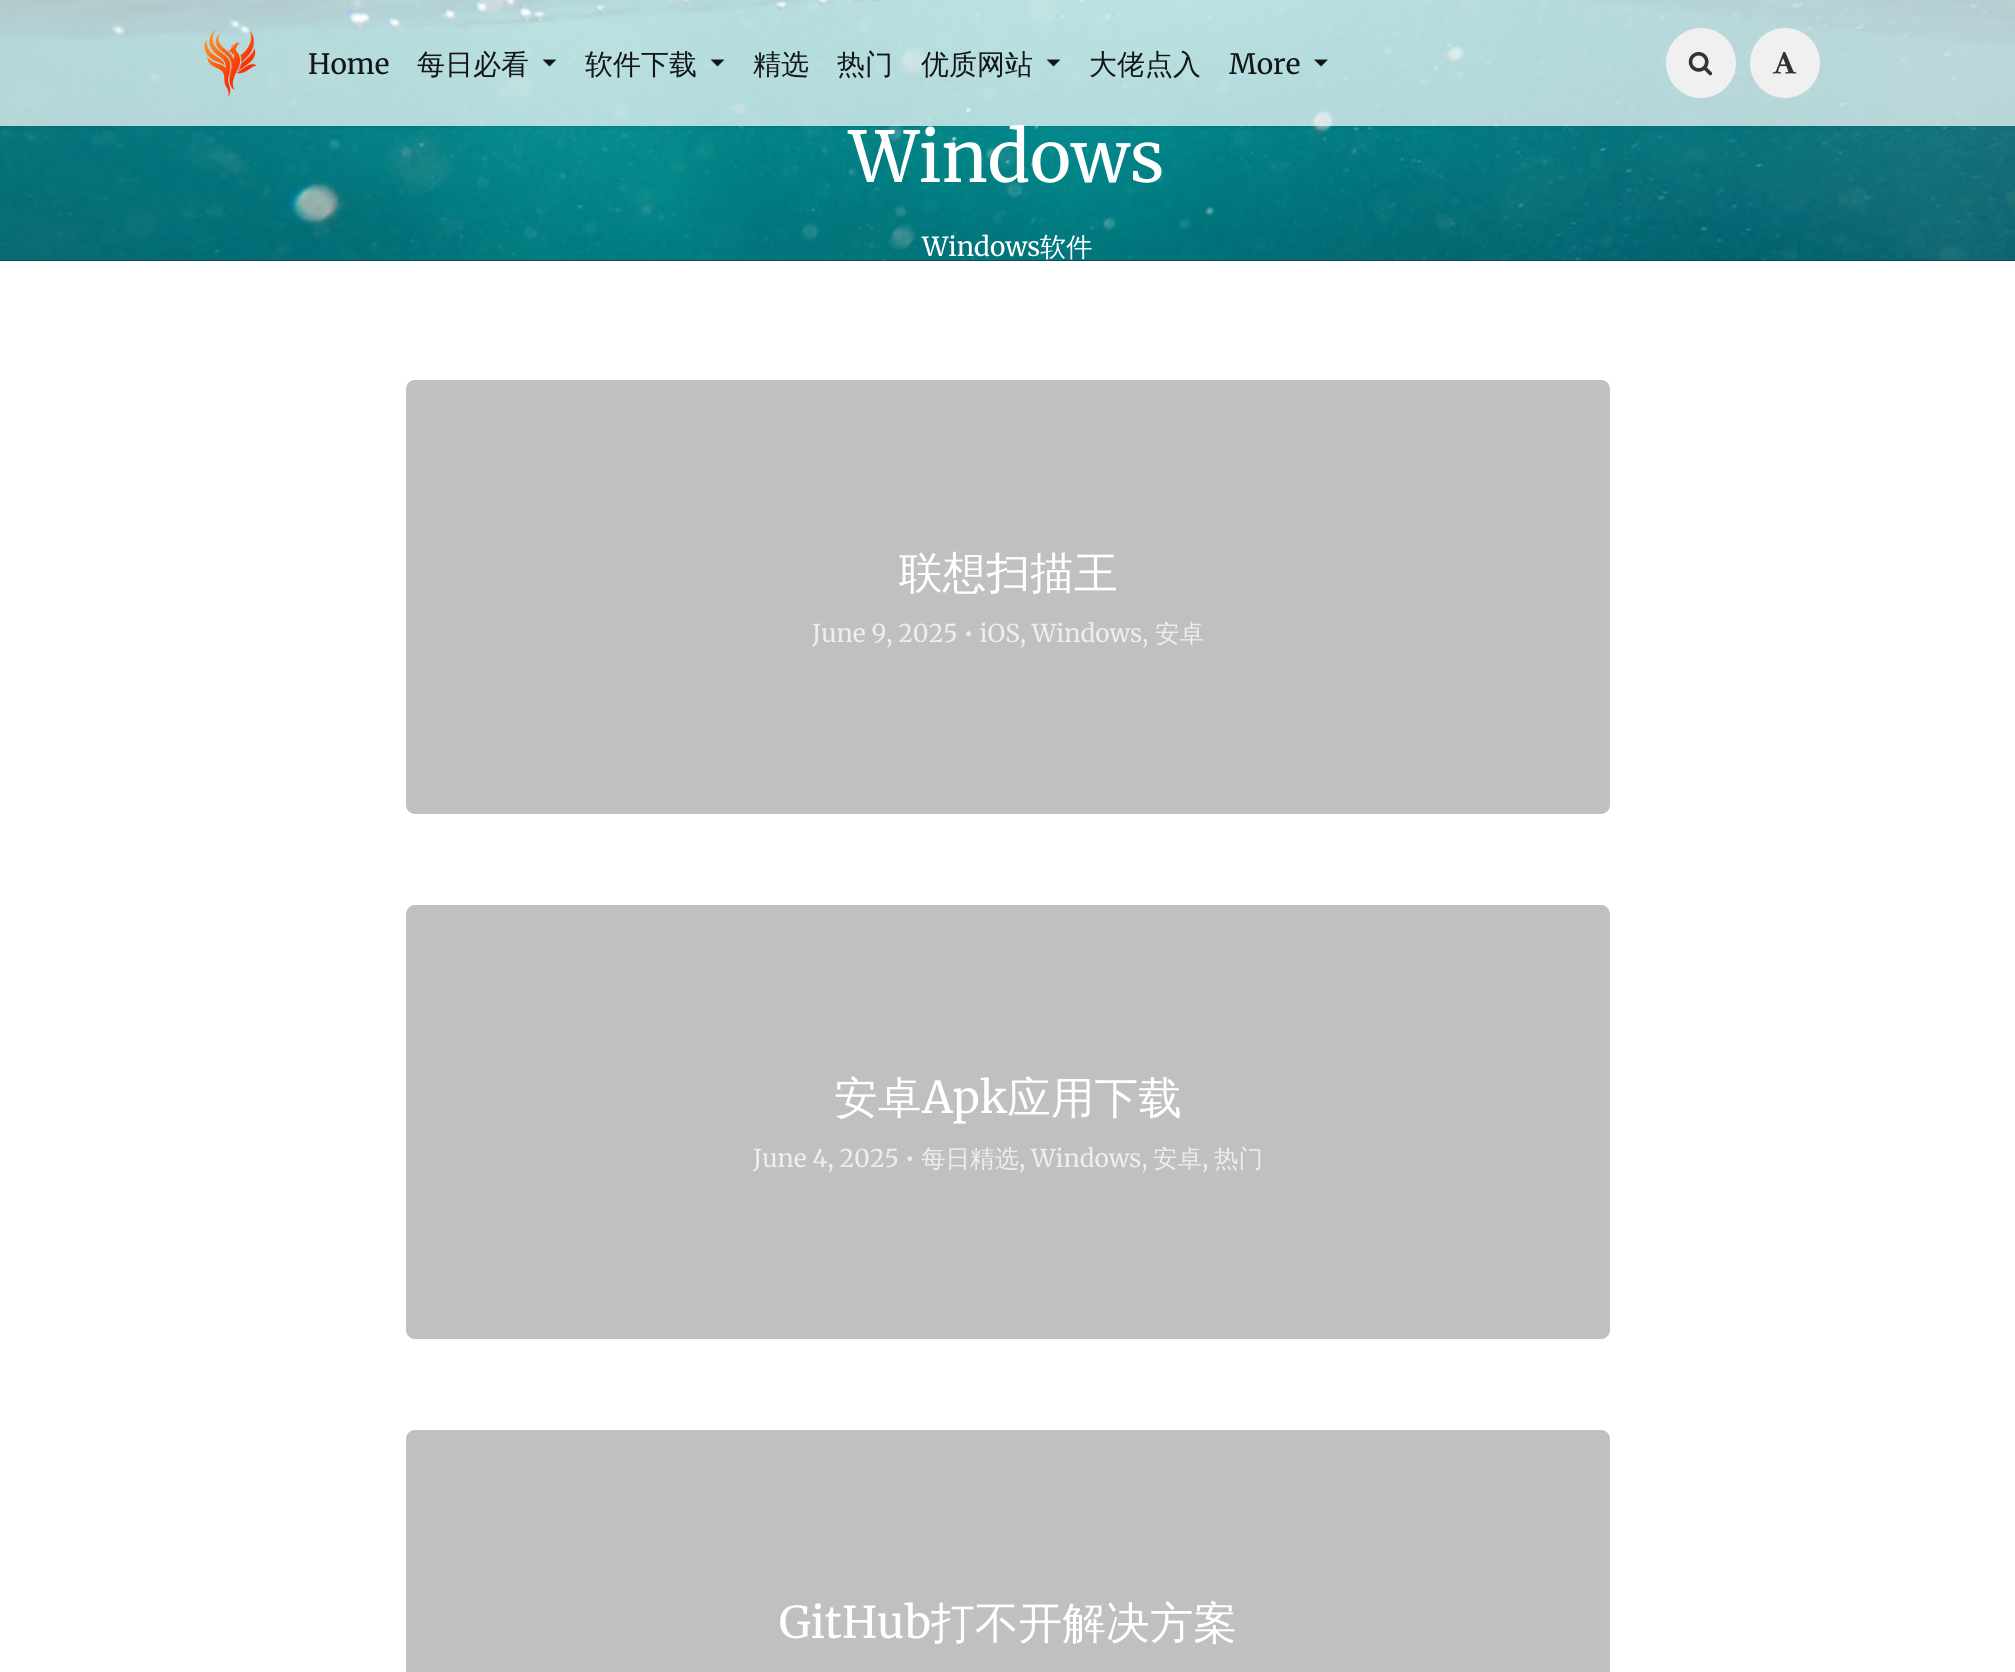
import math
import cairocffi as cairo

surface = cairo.ImageSurface(cairo.FORMAT_RGB24, 2015, 1672)
cr = cairo.Context(surface)
options = cairo.FontOptions()
options.set_hint_metrics(cairo.HINT_METRICS_OFF)
options.set_hint_style(cairo.HINT_STYLE_NONE)
cr.set_font_options(options)
cr.set_miter_limit(4)


def use_color(code):
    cr.set_source_rgb(*(v / 255 for v in bytes.fromhex(code[-6:])))


def round_rect(x, y, w, h, r):
    cr.new_sub_path()
    for i, (u, v) in enumerate([(x + w - r, y + h - r), (x + r, y + h - r), (x + r, y + r), (x + w - r, y + r)]):
        cr.arc(u, v, r, i * math.pi / 2, (i + 1) * math.pi / 2)
    cr.close_path()


def shadow(x, y, w, h, r, blur, alpha):
    cr.push_group_with_content(cairo.CONTENT_ALPHA)
    cr.set_operator(cairo.OPERATOR_SOURCE)
    for i in range(15, -16, -2):
        e = blur * i / 6
        if min(w, h) + 2 * e > 0:
            cr.set_source_rgba(0, 0, 0, alpha * math.erfc((i - 1) / 8.5) / 2)
            round_rect(x - e, y - e, w + 2 * e, h + 2 * e, max(0, min(r + e + blur * .6, min(w, h) / 2 + e)))
            cr.fill()
    cr.mask(cr.pop_group())


def picture(path, x, y, w, h):
    cr.save()
    cr.set_source_surface(cairo.ImageSurface.create_from_png(path), x, y)
    cr.rectangle(x, y, w, h)
    cr.fill()
    cr.restore()


use_color("#ffffff")
cr.paint()
use_color("#1e1e1f")
cr.rectangle(0, 260, 2015, 1)
cr.fill()
picture("img4.png", 0, 0, 2015, 261)
cr.save()
cr.rectangle(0, 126, 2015, 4)
cr.clip()
use_color("#000000")
shadow(-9, 18, 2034, 108, 0, 4.5, 0.12)
cr.restore()
cr.select_font_face("Merriweather")
cr.set_font_size(70)
use_color("#ffffff")
cr.move_to(849, 182)
cr.show_text("Windows")
cr.set_source_rgba(1, 1, 1, 0.7)
cr.rectangle(0, 0, 2015, 126)
cr.fill()
picture("img1.png", 204, 30, 53, 67)
cr.set_font_size(28)
use_color("#121616")
cr.move_to(308, 74)
cr.show_text("Home")
cr.select_font_face("WenQuanYi Zen Hei Medium")
cr.move_to(417, 74)
cr.show_text("每日必看")
use_color("#131616")
cr.new_path()
cr.move_to(542.5, 59.5)
cr.line_to(556.5, 59.5)
cr.line_to(549.5, 66.5)
cr.close_path()
cr.fill()
use_color("#121616")
cr.move_to(585, 74)
cr.show_text("软件下载")
cr.new_path()
cr.move_to(710.5, 59.5)
cr.line_to(724.5, 59.5)
cr.line_to(717.5, 66.5)
cr.close_path()
cr.fill()
cr.move_to(753, 74)
cr.show_text("精选")
cr.move_to(837, 74)
cr.show_text("热门")
cr.move_to(921, 74)
cr.show_text("优质网站")
cr.new_path()
cr.move_to(1046.5, 59.5)
cr.line_to(1060.5, 59.5)
cr.line_to(1053.5, 66.5)
cr.close_path()
cr.fill()
cr.move_to(1089, 74)
cr.show_text("大佬点入")
cr.select_font_face("Merriweather")
cr.move_to(1229, 74)
cr.show_text("More")
cr.new_path()
cr.move_to(1314, 59.5)
cr.line_to(1328, 59.5)
cr.line_to(1321, 66.5)
cr.close_path()
cr.fill()
use_color("#f0f0f0")
cr.arc(1701, 63, 35, 0, 2 * math.pi)
cr.fill()
picture("img2.png", 1688, 51, 25, 25)
cr.arc(1785, 63, 35, 0, 2 * math.pi)
cr.fill()
picture("img3.png", 1772, 51, 25, 23)
cr.set_font_size(26.25)
use_color("#ffffff")
cr.move_to(922, 256)
cr.show_text("Windows")
cr.select_font_face("WenQuanYi Zen Hei Medium")
cr.move_to(1040, 256)
cr.show_text("软件")
use_color("#c0c0c0")
round_rect(406, 380, 1204, 434, 9)
cr.fill()
cr.set_font_size(43.75)
use_color("#ffffff")
cr.move_to(899, 588)
cr.show_text("联想扫描王")
cr.select_font_face("Merriweather")
cr.set_font_size(24.5)
use_color("#eeeeee")
cr.move_to(812, 642)
cr.show_text("June 9, 2025 • iOS, Windows,")
cr.select_font_face("WenQuanYi Zen Hei Medium")
cr.move_to(1155, 642)
cr.show_text("安卓")
use_color("#c0c0c0")
round_rect(406, 905, 1204, 434, 9)
cr.fill()
cr.set_font_size(43.75)
use_color("#ffffff")
cr.move_to(834, 1113)
cr.show_text("安卓")
cr.select_font_face("Merriweather")
cr.move_to(922, 1113)
cr.show_text("Apk")
cr.select_font_face("WenQuanYi Zen Hei Medium")
cr.move_to(1007, 1113)
cr.show_text("应用下载")
cr.select_font_face("Merriweather")
cr.set_font_size(24.5)
use_color("#eeeeee")
cr.move_to(753, 1167)
cr.show_text("June 4, 2025 •")
cr.select_font_face("WenQuanYi Zen Hei Medium")
cr.move_to(921, 1167)
cr.show_text("每日精选")
cr.select_font_face("Merriweather")
cr.move_to(1019, 1167)
cr.show_text(", Windows,")
cr.select_font_face("WenQuanYi Zen Hei Medium")
cr.move_to(1153, 1167)
cr.show_text("安卓")
cr.select_font_face("Merriweather")
cr.move_to(1202, 1167)
cr.show_text(",")
cr.select_font_face("WenQuanYi Zen Hei Medium")
cr.move_to(1214, 1167)
cr.show_text("热门")
use_color("#c0c0c0")
round_rect(406, 1430, 1204, 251, 9)
cr.fill()
cr.select_font_face("Merriweather")
cr.set_font_size(43.75)
use_color("#ffffff")
cr.move_to(779, 1638)
cr.show_text("GitHub")
cr.select_font_face("WenQuanYi Zen Hei Medium")
cr.move_to(931, 1638)
cr.show_text("打不开解决方案")
surface.write_to_png("result.png")
